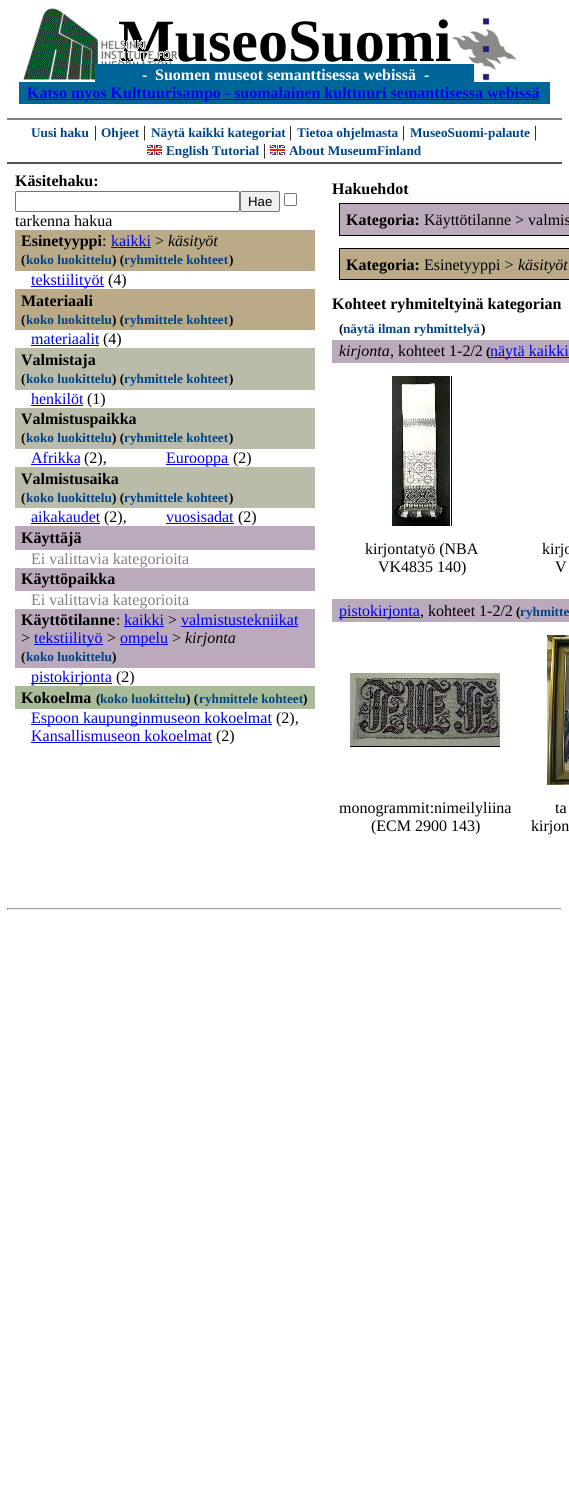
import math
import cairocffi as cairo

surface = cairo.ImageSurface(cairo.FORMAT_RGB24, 569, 1510)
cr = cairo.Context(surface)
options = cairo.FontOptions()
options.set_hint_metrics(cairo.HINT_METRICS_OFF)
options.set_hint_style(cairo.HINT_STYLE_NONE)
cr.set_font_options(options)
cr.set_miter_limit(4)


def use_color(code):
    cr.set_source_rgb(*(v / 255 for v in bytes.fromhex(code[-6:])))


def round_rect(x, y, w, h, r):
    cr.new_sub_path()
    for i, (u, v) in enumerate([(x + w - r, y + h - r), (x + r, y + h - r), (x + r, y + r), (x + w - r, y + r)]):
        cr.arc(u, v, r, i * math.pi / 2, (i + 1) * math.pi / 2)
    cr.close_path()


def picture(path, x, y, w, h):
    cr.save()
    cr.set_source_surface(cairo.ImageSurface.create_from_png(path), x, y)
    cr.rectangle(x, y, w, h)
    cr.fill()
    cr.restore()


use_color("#ffffff")
cr.paint()
cr.select_font_face("Liberation Serif", cairo.FONT_SLANT_NORMAL, cairo.FONT_WEIGHT_BOLD)
cr.set_font_size(60)
use_color("#000000")
cr.move_to(118, 61)
cr.show_text("MuseoSuomi")
picture("img1.png", 23, 8, 155, 72)
picture("img2.png", 452, 18, 65, 63)
use_color("#006699")
cr.rectangle(95, 64, 379, 18)
cr.fill()
cr.set_font_size(16)
use_color("#ffffff")
cr.move_to(142, 80)
cr.show_text("-")
cr.move_to(155, 80)
cr.show_text("Suomen museot semanttisessa webissä")
cr.move_to(424, 80)
cr.show_text("-")
use_color("#006699")
cr.rectangle(19, 82, 531, 22)
cr.fill()
use_color("#0000ee")
cr.rectangle(27, 99, 512, 1)
cr.fill()
cr.move_to(27, 98)
cr.show_text("Katso myos Kulttuurisampo - suomalainen kulttuuri semanttisessa webissä")
use_color("#808080")
cr.rectangle(7, 118, 555, 2)
cr.fill()
use_color("#555555")
cr.rectangle(7, 162, 555, 2)
cr.fill()
cr.set_font_size(13.25)
use_color("#004488")
cr.move_to(31, 137)
cr.show_text("Uusi haku")
cr.select_font_face("Liberation Serif")
cr.set_font_size(16)
use_color("#000000")
cr.move_to(94, 137)
cr.show_text("|")
cr.select_font_face("Liberation Serif", cairo.FONT_SLANT_NORMAL, cairo.FONT_WEIGHT_BOLD)
cr.set_font_size(13.25)
use_color("#004488")
cr.move_to(101, 137)
cr.show_text("Ohjeet")
cr.select_font_face("Liberation Serif")
cr.set_font_size(16)
use_color("#000000")
cr.move_to(143, 137)
cr.show_text("|")
cr.select_font_face("Liberation Serif", cairo.FONT_SLANT_NORMAL, cairo.FONT_WEIGHT_BOLD)
cr.set_font_size(13.25)
use_color("#004488")
cr.move_to(151, 137)
cr.show_text("Näytä kaikki kategoriat")
cr.select_font_face("Liberation Serif")
cr.set_font_size(16)
use_color("#000000")
cr.move_to(289, 137)
cr.show_text("|")
cr.select_font_face("Liberation Serif", cairo.FONT_SLANT_NORMAL, cairo.FONT_WEIGHT_BOLD)
cr.set_font_size(13.25)
use_color("#004488")
cr.move_to(297, 137)
cr.show_text("Tietoa ohjelmasta")
cr.select_font_face("Liberation Serif")
cr.set_font_size(16)
use_color("#000000")
cr.move_to(402, 137)
cr.show_text("|")
cr.select_font_face("Liberation Serif", cairo.FONT_SLANT_NORMAL, cairo.FONT_WEIGHT_BOLD)
cr.set_font_size(13.25)
use_color("#004488")
cr.move_to(410, 137)
cr.show_text("MuseoSuomi-palaute")
cr.select_font_face("Liberation Serif")
cr.set_font_size(16)
use_color("#000000")
cr.move_to(534, 137)
cr.show_text("|")
picture("img3.png", 147, 145, 15, 10)
cr.select_font_face("Liberation Serif", cairo.FONT_SLANT_NORMAL, cairo.FONT_WEIGHT_BOLD)
cr.set_font_size(13.25)
use_color("#004488")
cr.move_to(166, 155)
cr.show_text("English Tutorial")
cr.select_font_face("Liberation Serif")
cr.set_font_size(16)
use_color("#000000")
cr.move_to(263, 155)
cr.show_text("|")
picture("img3.png", 270, 145, 15, 10)
cr.select_font_face("Liberation Serif", cairo.FONT_SLANT_NORMAL, cairo.FONT_WEIGHT_BOLD)
cr.set_font_size(13.25)
use_color("#004488")
cr.move_to(289, 155)
cr.show_text("About MuseumFinland")
cr.set_font_size(16)
use_color("#000000")
cr.move_to(15, 186)
cr.show_text("Käsitehaku:")
round_rect(15.5, 191.5, 224, 20, 1.5)
use_color("#767676")
cr.set_line_width(1)
cr.stroke()
use_color("#efefef")
round_rect(240.5, 191.5, 39, 20, 1.5)
cr.fill_preserve()
use_color("#767676")
cr.stroke()
cr.select_font_face("Liberation Sans")
cr.set_font_size(13.25)
use_color("#000000")
cr.move_to(248, 206)
cr.show_text("Hae")
round_rect(284.5, 193.5, 12, 12, 1.5)
use_color("#767676")
cr.stroke()
cr.select_font_face("Liberation Serif")
cr.set_font_size(16)
use_color("#000000")
cr.move_to(15, 226)
cr.show_text("tarkenna hakua")
use_color("#bbaa88")
cr.rectangle(15, 230, 300, 41)
cr.fill()
cr.select_font_face("Liberation Serif", cairo.FONT_SLANT_NORMAL, cairo.FONT_WEIGHT_BOLD)
use_color("#000000")
cr.move_to(21, 246)
cr.show_text("Esinetyyppi")
cr.select_font_face("Liberation Serif")
cr.move_to(102, 246)
cr.show_text(":")
use_color("#0000ee")
cr.move_to(111, 246)
cr.show_text("kaikki")
cr.rectangle(111, 247, 40, 1)
cr.fill()
use_color("#000000")
cr.move_to(155, 246)
cr.show_text(">")
cr.select_font_face("Liberation Serif", cairo.FONT_SLANT_ITALIC)
cr.move_to(168, 246)
cr.show_text("käsityöt")
cr.select_font_face("Liberation Serif", cairo.FONT_SLANT_NORMAL, cairo.FONT_WEIGHT_BOLD)
cr.set_font_size(13.25)
cr.move_to(21, 264)
cr.show_text("(")
use_color("#004488")
cr.move_to(26, 264)
cr.show_text("koko luokittelu")
use_color("#000000")
cr.move_to(112, 264)
cr.show_text(") (")
use_color("#004488")
cr.move_to(124, 264)
cr.show_text("ryhmittele kohteet")
use_color("#000000")
cr.move_to(229, 264)
cr.show_text(")")
use_color("#0000ee")
cr.rectangle(31, 286, 73, 1)
cr.fill()
cr.select_font_face("Liberation Serif")
cr.set_font_size(16)
cr.move_to(31, 285)
cr.show_text("tekstiilityöt")
use_color("#000000")
cr.move_to(108, 285)
cr.show_text("(4)")
use_color("#bbaa88")
cr.rectangle(15, 289, 300, 41)
cr.fill()
cr.select_font_face("Liberation Serif", cairo.FONT_SLANT_NORMAL, cairo.FONT_WEIGHT_BOLD)
use_color("#000000")
cr.move_to(21, 306)
cr.show_text("Materiaali")
cr.set_font_size(13.25)
cr.move_to(21, 324)
cr.show_text("(")
use_color("#004488")
cr.move_to(26, 324)
cr.show_text("koko luokittelu")
use_color("#000000")
cr.move_to(112, 324)
cr.show_text(") (")
use_color("#004488")
cr.move_to(124, 324)
cr.show_text("ryhmittele kohteet")
use_color("#000000")
cr.move_to(229, 324)
cr.show_text(")")
cr.select_font_face("Liberation Serif")
cr.set_font_size(16)
use_color("#0000ee")
cr.move_to(31, 344)
cr.show_text("materiaalit")
cr.rectangle(31, 345, 68, 1)
cr.fill()
use_color("#000000")
cr.move_to(103, 344)
cr.show_text("(4)")
use_color("#bbbbaa")
cr.rectangle(15, 348, 300, 42)
cr.fill()
cr.select_font_face("Liberation Serif", cairo.FONT_SLANT_NORMAL, cairo.FONT_WEIGHT_BOLD)
use_color("#000000")
cr.move_to(21, 365)
cr.show_text("Valmistaja")
cr.set_font_size(13.25)
cr.move_to(21, 383)
cr.show_text("(")
use_color("#004488")
cr.move_to(26, 383)
cr.show_text("koko luokittelu")
use_color("#000000")
cr.move_to(112, 383)
cr.show_text(") (")
use_color("#004488")
cr.move_to(124, 383)
cr.show_text("ryhmittele kohteet")
use_color("#000000")
cr.move_to(229, 383)
cr.show_text(")")
cr.select_font_face("Liberation Serif")
cr.set_font_size(16)
use_color("#0000ee")
cr.move_to(31, 404)
cr.show_text("henkilöt")
cr.rectangle(31, 405, 52, 1)
cr.fill()
use_color("#000000")
cr.move_to(87, 404)
cr.show_text("(1)")
use_color("#bbbbaa")
cr.rectangle(15, 408, 300, 41)
cr.fill()
cr.select_font_face("Liberation Serif", cairo.FONT_SLANT_NORMAL, cairo.FONT_WEIGHT_BOLD)
use_color("#000000")
cr.move_to(21, 424)
cr.show_text("Valmistuspaikka")
cr.set_font_size(13.25)
cr.move_to(21, 442)
cr.show_text("(")
use_color("#004488")
cr.move_to(26, 442)
cr.show_text("koko luokittelu")
use_color("#000000")
cr.move_to(112, 442)
cr.show_text(") (")
use_color("#004488")
cr.move_to(124, 442)
cr.show_text("ryhmittele kohteet")
use_color("#000000")
cr.move_to(229, 442)
cr.show_text(")")
cr.select_font_face("Liberation Serif")
cr.set_font_size(16)
use_color("#0000ee")
cr.move_to(31, 463)
cr.show_text("Afrikka")
cr.rectangle(31, 464, 49, 1)
cr.fill()
use_color("#000000")
cr.move_to(84, 463)
cr.show_text("(2),")
use_color("#0000ee")
cr.rectangle(166, 464, 63, 1)
cr.fill()
cr.move_to(166, 463)
cr.show_text("Eurooppa")
use_color("#000000")
cr.move_to(233, 463)
cr.show_text("(2)")
use_color("#bbbbaa")
cr.rectangle(15, 467, 300, 41)
cr.fill()
cr.select_font_face("Liberation Serif", cairo.FONT_SLANT_NORMAL, cairo.FONT_WEIGHT_BOLD)
use_color("#000000")
cr.move_to(21, 484)
cr.show_text("Valmistusaika")
cr.set_font_size(13.25)
cr.move_to(21, 502)
cr.show_text("(")
use_color("#004488")
cr.move_to(26, 502)
cr.show_text("koko luokittelu")
use_color("#000000")
cr.move_to(112, 502)
cr.show_text(") (")
use_color("#004488")
cr.move_to(124, 502)
cr.show_text("ryhmittele kohteet")
use_color("#000000")
cr.move_to(229, 502)
cr.show_text(")")
cr.select_font_face("Liberation Serif")
cr.set_font_size(16)
use_color("#0000ee")
cr.move_to(31, 522)
cr.show_text("aikakaudet")
cr.rectangle(31, 523, 69, 1)
cr.fill()
use_color("#000000")
cr.move_to(104, 522)
cr.show_text("(2),")
use_color("#0000ee")
cr.move_to(166, 522)
cr.show_text("vuosisadat")
cr.rectangle(166, 523, 68, 1)
cr.fill()
use_color("#000000")
cr.move_to(238, 522)
cr.show_text("(2)")
use_color("#bbaabb")
cr.rectangle(15, 526, 300, 24)
cr.fill()
cr.select_font_face("Liberation Serif", cairo.FONT_SLANT_NORMAL, cairo.FONT_WEIGHT_BOLD)
use_color("#000000")
cr.move_to(21, 543)
cr.show_text("Käyttäjä")
cr.select_font_face("Liberation Serif")
use_color("#808080")
cr.move_to(31, 564)
cr.show_text("Ei valittavia kategorioita")
use_color("#bbaabb")
cr.rectangle(15, 568, 300, 23)
cr.fill()
cr.select_font_face("Liberation Serif", cairo.FONT_SLANT_NORMAL, cairo.FONT_WEIGHT_BOLD)
use_color("#000000")
cr.move_to(21, 584)
cr.show_text("Käyttöpaikka")
cr.select_font_face("Liberation Serif")
use_color("#808080")
cr.move_to(31, 605)
cr.show_text("Ei valittavia kategorioita")
use_color("#bbaabb")
cr.rectangle(15, 609, 300, 59)
cr.fill()
cr.select_font_face("Liberation Serif", cairo.FONT_SLANT_NORMAL, cairo.FONT_WEIGHT_BOLD)
use_color("#000000")
cr.move_to(21, 625)
cr.show_text("Käyttötilanne")
cr.select_font_face("Liberation Serif")
cr.move_to(116, 625)
cr.show_text(":")
use_color("#0000ee")
cr.move_to(124, 625)
cr.show_text("kaikki")
cr.rectangle(124, 626, 40, 1)
cr.fill()
use_color("#000000")
cr.move_to(168, 625)
cr.show_text(">")
use_color("#0000ee")
cr.move_to(181, 625)
cr.show_text("valmistustekniikat")
cr.rectangle(181, 626, 117, 1)
cr.fill()
use_color("#000000")
cr.move_to(21, 643)
cr.show_text(">")
use_color("#0000ee")
cr.rectangle(34, 644, 69, 1)
cr.fill()
cr.move_to(34, 643)
cr.show_text("tekstiilityö")
use_color("#000000")
cr.move_to(107, 643)
cr.show_text(">")
use_color("#0000ee")
cr.rectangle(120, 644, 48, 1)
cr.fill()
cr.move_to(120, 643)
cr.show_text("ompelu")
use_color("#000000")
cr.move_to(172, 643)
cr.show_text(">")
cr.select_font_face("Liberation Serif", cairo.FONT_SLANT_ITALIC)
cr.move_to(185, 643)
cr.show_text("kirjonta")
cr.select_font_face("Liberation Serif", cairo.FONT_SLANT_NORMAL, cairo.FONT_WEIGHT_BOLD)
cr.set_font_size(13.25)
cr.move_to(21, 661)
cr.show_text("(")
use_color("#004488")
cr.move_to(26, 661)
cr.show_text("koko luokittelu")
use_color("#000000")
cr.move_to(112, 661)
cr.show_text(")")
use_color("#0000ee")
cr.rectangle(31, 683, 81, 1)
cr.fill()
cr.select_font_face("Liberation Serif")
cr.set_font_size(16)
cr.move_to(31, 682)
cr.show_text("pistokirjonta")
use_color("#000000")
cr.move_to(116, 682)
cr.show_text("(2)")
use_color("#aabb99")
cr.rectangle(15, 686, 300, 23)
cr.fill()
cr.select_font_face("Liberation Serif", cairo.FONT_SLANT_NORMAL, cairo.FONT_WEIGHT_BOLD)
use_color("#000000")
cr.move_to(21, 703)
cr.show_text("Kokoelma")
cr.set_font_size(13.25)
cr.move_to(96, 703)
cr.show_text("(")
use_color("#004488")
cr.move_to(100, 703)
cr.show_text("koko luokittelu")
use_color("#000000")
cr.move_to(186, 703)
cr.show_text(") (")
use_color("#004488")
cr.move_to(199, 703)
cr.show_text("ryhmittele kohteet")
use_color("#000000")
cr.move_to(303, 703)
cr.show_text(")")
use_color("#0000ee")
cr.rectangle(31, 724, 241, 1)
cr.fill()
cr.select_font_face("Liberation Serif")
cr.set_font_size(16)
cr.move_to(31, 723)
cr.show_text("Espoon kaupunginmuseon kokoelmat")
use_color("#000000")
cr.move_to(276, 723)
cr.show_text("(2),")
use_color("#0000ee")
cr.move_to(31, 741)
cr.show_text("Kansallismuseon kokoelmat")
cr.rectangle(31, 742, 181, 1)
cr.fill()
use_color("#000000")
cr.move_to(216, 741)
cr.show_text("(2)")
cr.select_font_face("Liberation Serif", cairo.FONT_SLANT_NORMAL, cairo.FONT_WEIGHT_BOLD)
cr.move_to(332, 194)
cr.show_text("Hakuehdot")
use_color("#bbaabb")
cr.rectangle(340, 204, 229, 31)
cr.fill()
use_color("#000000")
cr.move_to(346, 225)
cr.show_text("Kategoria:")
cr.rectangle(339, 203, 230, 1)
cr.fill()
cr.rectangle(339, 235, 230, 1)
cr.fill()
cr.rectangle(339, 203, 1, 33)
cr.fill()
cr.select_font_face("Liberation Serif")
cr.move_to(424, 225)
cr.show_text("Käyttötilanne > valmis")
use_color("#bbaa88")
cr.rectangle(340, 249, 227, 30)
cr.fill()
cr.select_font_face("Liberation Serif", cairo.FONT_SLANT_NORMAL, cairo.FONT_WEIGHT_BOLD)
use_color("#000000")
cr.move_to(346, 270)
cr.show_text("Kategoria:")
cr.rectangle(339, 248, 228, 1)
cr.fill()
cr.rectangle(339, 279, 228, 1)
cr.fill()
cr.rectangle(339, 248, 1, 32)
cr.fill()
cr.select_font_face("Liberation Serif")
cr.move_to(424, 270)
cr.show_text("Esinetyyppi >")
use_color("#bbaa88")
cr.rectangle(567, 248, 2, 32)
cr.fill()
cr.select_font_face("Liberation Serif", cairo.FONT_SLANT_ITALIC)
use_color("#000000")
cr.move_to(518, 270)
cr.show_text("käsityöt")
cr.rectangle(567, 248, 2, 1)
cr.fill()
cr.rectangle(567, 279, 2, 1)
cr.fill()
cr.select_font_face("Liberation Serif", cairo.FONT_SLANT_NORMAL, cairo.FONT_WEIGHT_BOLD)
cr.move_to(332, 309)
cr.show_text("Kohteet ryhmiteltyinä kategorian")
cr.set_font_size(13.25)
cr.move_to(339, 333)
cr.show_text("(")
use_color("#004488")
cr.move_to(343, 333)
cr.show_text("näytä ilman ryhmittelyä")
use_color("#000000")
cr.move_to(481, 333)
cr.show_text(")")
use_color("#bbaabb")
cr.rectangle(332, 340, 237, 23)
cr.fill()
cr.select_font_face("Liberation Serif", cairo.FONT_SLANT_ITALIC)
cr.set_font_size(16)
use_color("#000000")
cr.move_to(339, 356)
cr.show_text("kirjonta")
cr.select_font_face("Liberation Serif")
cr.move_to(390, 356)
cr.show_text(", kohteet 1-2/2")
cr.select_font_face("Liberation Serif", cairo.FONT_SLANT_NORMAL, cairo.FONT_WEIGHT_BOLD)
cr.set_font_size(13.25)
cr.move_to(486, 356)
cr.show_text("(")
use_color("#0000ee")
cr.rectangle(490, 357, 79, 1)
cr.fill()
cr.select_font_face("Liberation Serif")
cr.set_font_size(16)
cr.move_to(490, 356)
cr.show_text("näytä kaikki")
picture("img4.png", 392, 376, 60, 150)
use_color("#000000")
cr.move_to(365, 554)
cr.show_text("kirjontatyö (NBA")
cr.move_to(378, 572)
cr.show_text("VK4835 140)")
cr.move_to(542, 554)
cr.show_text("kirjo")
cr.move_to(555, 572)
cr.show_text("V")
use_color("#bbaabb")
cr.rectangle(332, 599, 237, 23)
cr.fill()
use_color("#0000ee")
cr.rectangle(339, 617, 81, 1)
cr.fill()
cr.move_to(339, 616)
cr.show_text("pistokirjonta")
use_color("#000000")
cr.move_to(420, 616)
cr.show_text(", kohteet 1-2/2")
cr.select_font_face("Liberation Serif", cairo.FONT_SLANT_NORMAL, cairo.FONT_WEIGHT_BOLD)
cr.set_font_size(13.25)
cr.move_to(516, 616)
cr.show_text("(")
use_color("#004488")
cr.move_to(520, 616)
cr.show_text("ryhmitte")
picture("img5.png", 350, 673, 150, 74)
picture("img6.png", 547, 635, 22, 150)
cr.select_font_face("Liberation Serif")
cr.set_font_size(16)
use_color("#000000")
cr.move_to(339, 813)
cr.show_text("monogrammit:nimeilyliina")
cr.move_to(371, 831)
cr.show_text("(ECM 2900 143)")
cr.move_to(555, 813)
cr.show_text("ta")
cr.move_to(531, 831)
cr.show_text("kirjon")
use_color("#9f9f9f")
cr.rectangle(7, 908, 555, 1)
cr.fill()
use_color("#eeeeee")
cr.rectangle(561, 908, 1, 2)
cr.fill()
cr.rectangle(7, 909, 555, 1)
cr.fill()
use_color("#9f9f9f")
cr.rectangle(7, 908, 1, 2)
cr.fill()
surface.write_to_png("result.png")
